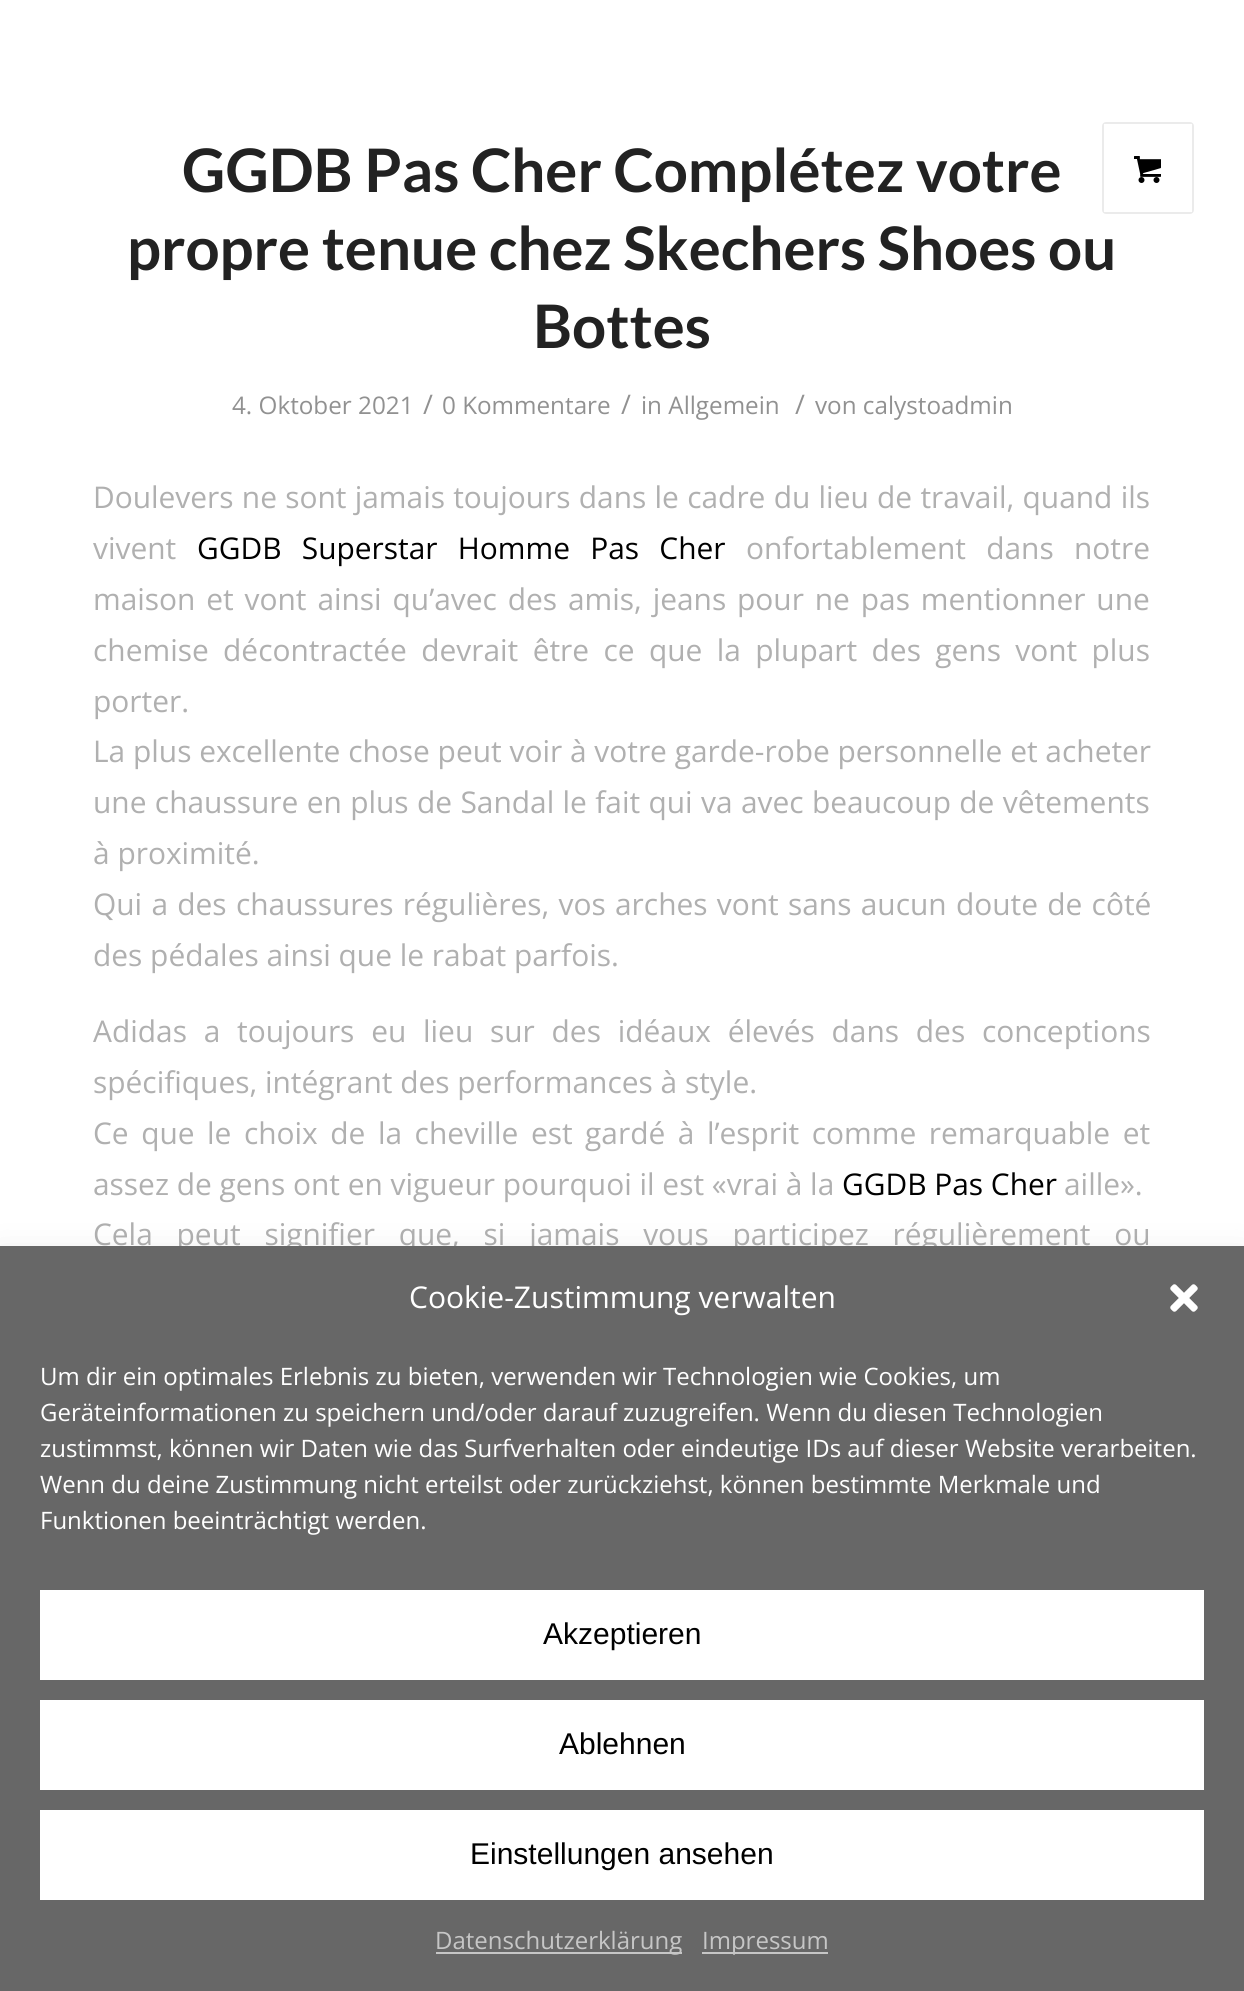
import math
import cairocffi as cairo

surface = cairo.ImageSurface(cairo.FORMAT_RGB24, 1244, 1991)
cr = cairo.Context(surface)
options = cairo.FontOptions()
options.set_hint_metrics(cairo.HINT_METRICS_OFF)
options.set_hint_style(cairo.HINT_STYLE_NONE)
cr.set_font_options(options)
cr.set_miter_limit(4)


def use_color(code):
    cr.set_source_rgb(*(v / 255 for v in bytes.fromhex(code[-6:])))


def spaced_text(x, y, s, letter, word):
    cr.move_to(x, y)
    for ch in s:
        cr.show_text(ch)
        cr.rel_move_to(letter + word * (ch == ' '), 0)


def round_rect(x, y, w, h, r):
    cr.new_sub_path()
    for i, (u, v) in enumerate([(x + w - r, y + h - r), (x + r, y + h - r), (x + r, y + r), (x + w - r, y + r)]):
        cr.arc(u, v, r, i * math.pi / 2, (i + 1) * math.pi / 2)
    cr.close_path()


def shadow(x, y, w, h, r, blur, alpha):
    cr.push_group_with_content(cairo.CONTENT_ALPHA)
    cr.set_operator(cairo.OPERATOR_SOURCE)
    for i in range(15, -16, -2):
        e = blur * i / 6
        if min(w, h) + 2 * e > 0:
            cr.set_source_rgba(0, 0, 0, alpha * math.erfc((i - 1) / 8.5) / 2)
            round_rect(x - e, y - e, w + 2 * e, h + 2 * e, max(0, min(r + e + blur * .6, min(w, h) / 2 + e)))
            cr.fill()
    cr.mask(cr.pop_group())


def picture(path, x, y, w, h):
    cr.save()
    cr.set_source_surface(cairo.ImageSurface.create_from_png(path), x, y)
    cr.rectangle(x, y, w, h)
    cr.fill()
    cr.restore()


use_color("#ffffff")
cr.paint()
round_rect(1103, 123, 90, 90, 3)
use_color("#ebebeb")
cr.stroke()
use_color("#ffffff")
cr.rectangle(1104, 124, 88, 88)
cr.fill()
picture("img1.png", 1134, 156, 27, 27)
cr.select_font_face("Lato", cairo.FONT_SLANT_NORMAL, cairo.FONT_WEIGHT_BOLD)
cr.set_font_size(60)
use_color("#222222")
cr.move_to(182, 192)
cr.show_text("GGDB Pas Cher Complétez votre")
cr.move_to(127, 270)
cr.show_text("propre tenue chez Skechers Shoes ou")
cr.move_to(533, 348)
cr.show_text("Bottes")
cr.select_font_face("Open Sans")
cr.set_font_size(24.25)
use_color("#919191")
cr.move_to(232, 414)
cr.show_text("4. Oktober 2021")
cr.set_font_size(27)
cr.move_to(423, 414)
cr.show_text("/")
cr.set_font_size(24.25)
cr.move_to(442, 414)
cr.show_text("0 Kommentare")
cr.set_font_size(27)
cr.move_to(621, 414)
cr.show_text("/")
cr.set_font_size(24.25)
cr.move_to(641, 414)
cr.show_text("in Allgemein")
cr.set_font_size(27)
cr.move_to(795, 414)
cr.show_text("/")
cr.set_font_size(24.25)
cr.move_to(815, 414)
cr.show_text("von calystoadmin")
cr.set_font_size(29.9)
use_color("#b0b0b0")
spaced_text(93, 508, "Doulevers ne sont jamais toujours dans le cadre du lieu de travail, quand ils", 0, 0.5)
cr.move_to(93, 559)
cr.show_text("vivent")
use_color("#000000")
spaced_text(197, 559, "GGDB Superstar Homme Pas Cher", 0, 12.5)
use_color("#b0b0b0")
spaced_text(746, 559, "onfortablement dans notre", 0, 12.5)
spaced_text(93, 610, "maison et vont ainsi qu’avec des amis, jeans pour ne pas mentionner une", 0, 3.1)
spaced_text(93, 661, "chemise décontractée devrait être ce que la plupart des gens vont plus", 0, 6.6)
cr.move_to(93, 712)
cr.show_text("porter.")
cr.move_to(93, 762)
cr.show_text("La plus excellente chose peut voir à votre garde-robe personnelle et acheter")
spaced_text(93, 813, "une chaussure en plus de Sandal le fait qui va avec beaucoup de vêtements", 0, 0.6)
cr.move_to(93, 864)
cr.show_text("à proximité.")
spaced_text(93, 915, "Qui a des chaussures régulières, vos arches vont sans aucun doute de côté", 0, 1.5)
cr.move_to(93, 966)
cr.show_text("des pédales ainsi que le rabat parfois.")
spaced_text(93, 1042, "Adidas a toujours eu lieu sur des idéaux élevés dans des conceptions", 0, 9)
cr.move_to(93, 1093)
cr.show_text("spécifiques, intégrant des performances à style.")
spaced_text(93, 1144, "Ce que le choix de la cheville est gardé à l’esprit comme remarquable et", 0, 4.75)
cr.move_to(93, 1195)
cr.show_text("assez de gens ont en vigueur pourquoi il est «vrai à la")
use_color("#000000")
cr.move_to(842, 1195)
cr.show_text("GGDB Pas Cher")
use_color("#b0b0b0")
cr.move_to(1064, 1195)
cr.show_text("aille».")
spaced_text(93, 1245, "Cela peut signifier que, si jamais vous participez régulièrement ou", 0, 16)
use_color("#000000")
shadow(0, 1266, 1244, 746, 0, 20, 0.19)
use_color("#676767")
cr.rectangle(0, 1246, 1244, 745)
cr.fill()
cr.set_font_size(30)
use_color("#ffffff")
cr.move_to(409, 1308)
cr.show_text("Cookie-Zustimmung verwalten")
picture("img2.png", 1170, 1284, 28, 28)
cr.set_font_size(24)
cr.move_to(40, 1385)
cr.show_text("Um dir ein optimales Erlebnis zu bieten, verwenden wir Technologien wie Cookies, um")
cr.move_to(40, 1421)
cr.show_text("Geräteinformationen zu speichern und/oder darauf zuzugreifen. Wenn du diesen Technologien")
cr.move_to(40, 1457)
cr.show_text("zustimmst, können wir Daten wie das Surfverhalten oder eindeutige IDs auf dieser Website verarbeiten.")
cr.move_to(40, 1493)
cr.show_text("Wenn du deine Zustimmung nicht erteilst oder zurückziehst, können bestimmte Merkmale und")
cr.move_to(40, 1529)
cr.show_text("Funktionen beeinträchtigt werden.")
cr.rectangle(40, 1590, 1164, 90)
cr.fill()
cr.select_font_face("Liberation Sans")
cr.set_font_size(30)
use_color("#000000")
cr.move_to(543, 1644)
cr.show_text("Akzeptieren")
use_color("#ffffff")
cr.rectangle(40, 1700, 1164, 90)
cr.fill()
use_color("#000000")
cr.move_to(559, 1754)
cr.show_text("Ablehnen")
use_color("#ffffff")
cr.rectangle(40, 1810, 1164, 90)
cr.fill()
use_color("#000000")
cr.move_to(470, 1864)
cr.show_text("Einstellungen ansehen")
use_color("#c6c6c6")
cr.rectangle(436, 1952, 246, 2)
cr.fill()
cr.select_font_face("Open Sans")
cr.set_font_size(24)
cr.move_to(435, 1949)
cr.show_text("Datenschutzerklärung")
cr.rectangle(702, 1952, 126, 2)
cr.fill()
cr.move_to(702, 1949)
cr.show_text("Impressum")
surface.write_to_png("result.png")
